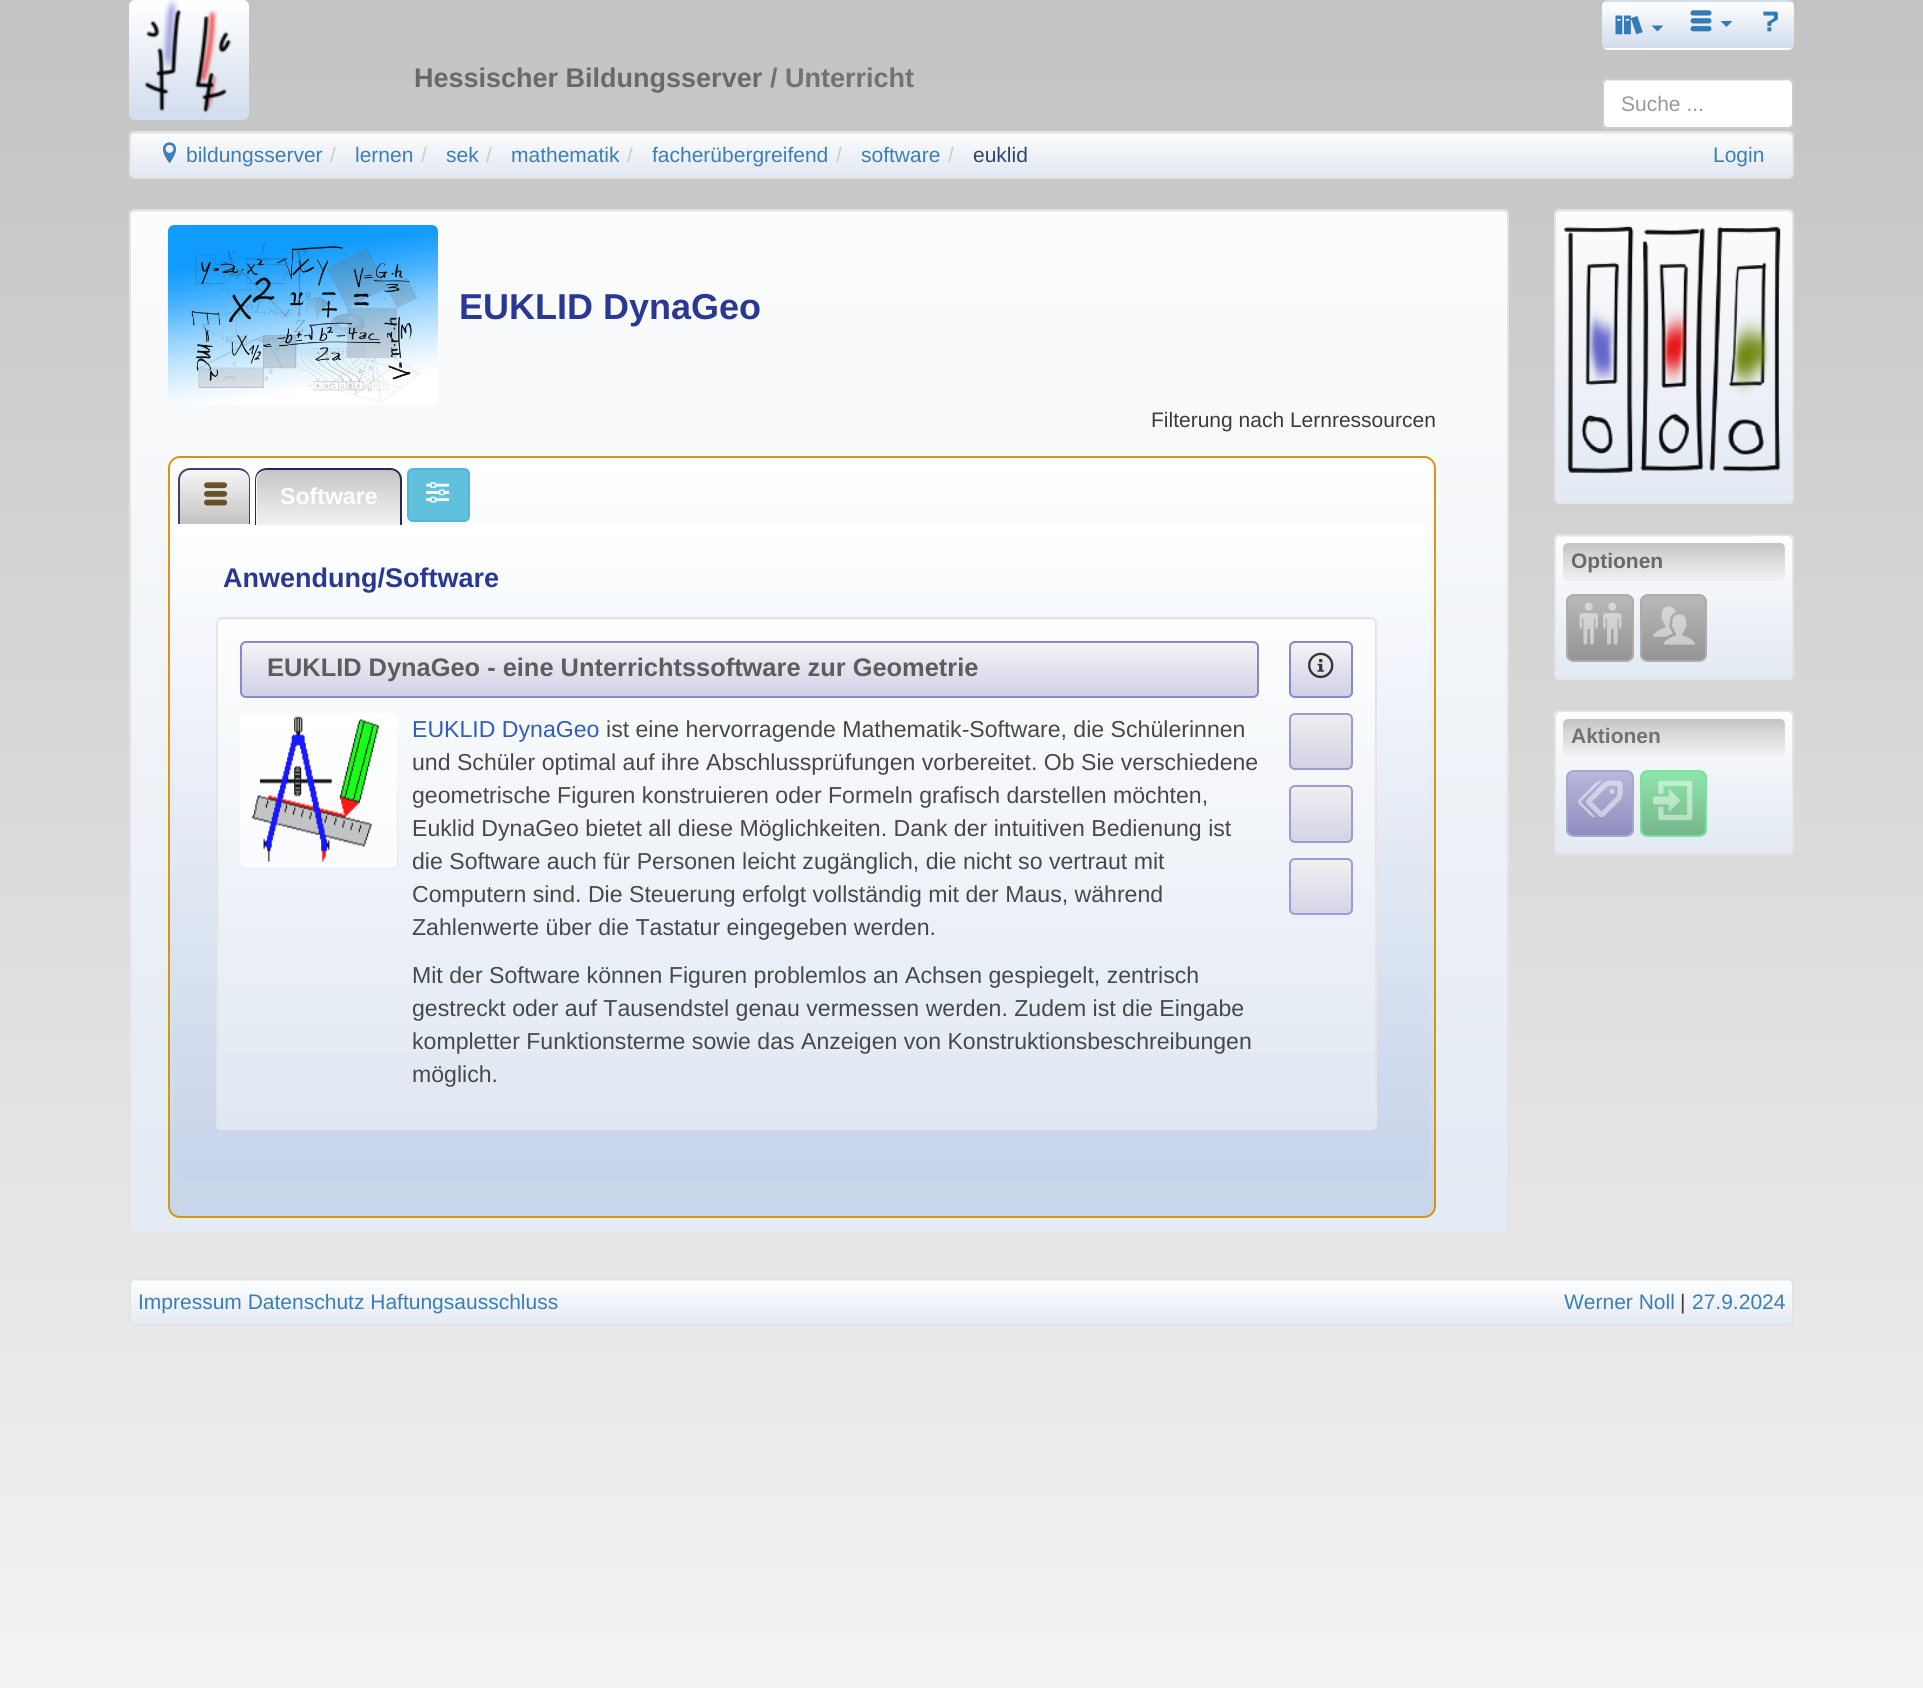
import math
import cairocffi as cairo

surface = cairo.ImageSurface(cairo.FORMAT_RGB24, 1923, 1688)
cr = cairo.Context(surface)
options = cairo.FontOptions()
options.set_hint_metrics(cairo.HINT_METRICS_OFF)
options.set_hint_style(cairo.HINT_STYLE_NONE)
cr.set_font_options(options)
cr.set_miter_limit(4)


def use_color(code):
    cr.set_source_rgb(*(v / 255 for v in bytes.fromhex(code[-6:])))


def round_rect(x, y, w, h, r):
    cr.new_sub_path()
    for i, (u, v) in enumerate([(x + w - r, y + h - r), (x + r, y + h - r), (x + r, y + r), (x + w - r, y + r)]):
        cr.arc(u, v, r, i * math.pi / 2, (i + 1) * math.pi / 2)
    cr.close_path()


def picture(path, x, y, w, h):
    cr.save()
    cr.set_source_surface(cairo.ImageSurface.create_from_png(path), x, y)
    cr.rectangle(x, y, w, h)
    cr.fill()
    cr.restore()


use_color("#ffffff")
cr.paint()
gradient = cairo.LinearGradient(962, 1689, 962, 0)
gradient.add_color_stop_rgba(0, 0.953, 0.953, 0.953, 1)
gradient.add_color_stop_rgba(1, 0.765, 0.765, 0.765, 1)
cr.set_source(gradient)
cr.rectangle(0, 0, 1923, 1688)
cr.fill()
gradient = cairo.LinearGradient(129, 120, 129, 0)
gradient.add_color_stop_rgba(0, 0.82, 0.863, 0.929, 1)
gradient.add_color_stop_rgba(1, 1, 1, 1, 1)
cr.set_source(gradient)
round_rect(129, 0, 120, 120, 6)
cr.fill()
picture("img1.png", 144, 0, 88, 113)
cr.save()
round_rect(1602, 0, 192, 50, 6)
cr.clip()
gradient = cairo.LinearGradient(1604, 1.5, 1604, -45)
gradient.add_color_stop_rgba(0, 0.82, 0.863, 0.929, 1)
gradient.add_color_stop_rgba(1, 1, 1, 1, 1)
cr.set_source(gradient)
cr.rectangle(1602, 0, 192, 2)
cr.fill()
gradient = cairo.LinearGradient(1604, 48, 1604, 1.5)
gradient.add_color_stop_rgba(0, 0.82, 0.863, 0.929, 1)
gradient.add_color_stop_rgba(1, 1, 1, 1, 1)
cr.set_source(gradient)
cr.rectangle(1602, 2, 192, 46)
cr.fill()
gradient = cairo.LinearGradient(1604, 95, 1604, 48)
gradient.add_color_stop_rgba(0, 0.82, 0.863, 0.929, 1)
gradient.add_color_stop_rgba(1, 1, 1, 1, 1)
cr.set_source(gradient)
cr.rectangle(1602, 48, 192, 2)
cr.fill()
cr.restore()
picture("img2.png", 1615, 15, 28, 20)
use_color("#337ab7")
cr.new_path()
cr.move_to(1651.5, 25.5)
cr.line_to(1663.5, 25.5)
cr.line_to(1657.5, 31.5)
cr.close_path()
cr.fill()
picture("img3.png", 1690, 10, 22, 22)
cr.new_path()
cr.move_to(1720.5, 21)
cr.line_to(1732.5, 21)
cr.line_to(1726.5, 27)
cr.close_path()
cr.fill()
picture("img4.png", 1763, 11, 15, 21)
cr.select_font_face("Liberation Sans", cairo.FONT_SLANT_NORMAL, cairo.FONT_WEIGHT_BOLD)
cr.set_font_size(27)
use_color("#696969")
cr.move_to(414, 87)
cr.show_text("Hessischer Bildungsserver")
use_color("#727272")
cr.move_to(770, 87)
cr.show_text("/ Unterricht")
use_color("#ffffff")
round_rect(1602, 78, 192, 51, 6)
cr.fill()
use_color("#ececec")
cr.new_path()
cr.move_to(1608, 81)
cr.line_to(1788, 81)
cr.curve_to(1790, 81, 1792, 83, 1792, 86)
cr.line_to(1792, 124)
cr.line_to(1791, 127)
cr.curve_to(1792, 126, 1793, 124, 1793, 123)
cr.line_to(1793, 85)
cr.curve_to(1793, 82, 1791, 80, 1788, 80)
cr.line_to(1609, 80)
cr.curve_to(1606, 80, 1604, 82, 1604, 85)
cr.line_to(1604, 86)
cr.curve_to(1604, 83, 1606, 81, 1608, 81)
cr.close_path()
cr.fill()
round_rect(1603, 79, 190, 49, 5)
use_color("#cccccc")
cr.stroke()
cr.select_font_face("Liberation Sans")
cr.set_font_size(21)
use_color("#999999")
cr.move_to(1621, 111)
cr.show_text("Suche ...")
cr.save()
round_rect(129, 131, 1665, 48, 6)
cr.clip()
gradient = cairo.LinearGradient(131, 177, 131, 132)
gradient.add_color_stop_rgba(0, 0.886, 0.91, 0.949, 1)
gradient.add_color_stop_rgba(1, 0.988, 0.988, 0.988, 1)
cr.set_source(gradient)
cr.rectangle(129, 132, 1665, 45)
cr.fill()
cr.restore()
cr.set_source_rgba(0.039, 0.039, 0.039, 0.05)
cr.new_path()
cr.move_to(135, 134)
cr.line_to(1788, 134)
cr.curve_to(1790, 134, 1792, 136, 1792, 138)
cr.line_to(1792, 175)
cr.curve_to(1793, 174, 1793, 173, 1793, 172)
cr.line_to(1793, 137)
cr.curve_to(1793, 134, 1791, 132, 1788, 132)
cr.line_to(136, 132)
cr.curve_to(134, 132, 132, 134, 131, 136)
cr.curve_to(132, 135, 134, 134, 135, 134)
cr.close_path()
cr.fill()
round_rect(130, 132, 1663, 46, 5)
use_color("#e2e2e2")
cr.stroke()
picture("img5.png", 162, 142, 15, 22)
use_color("#3a7eb8")
cr.move_to(186, 162)
cr.show_text("bildungsserver")
use_color("#cccccc")
cr.move_to(330, 162)
cr.show_text("/")
use_color("#3a7eb8")
cr.move_to(355, 162)
cr.show_text("lernen")
use_color("#cccccc")
cr.move_to(421, 162)
cr.show_text("/")
use_color("#3a7eb8")
cr.move_to(446, 162)
cr.show_text("sek")
use_color("#cccccc")
cr.move_to(486, 162)
cr.show_text("/")
use_color("#3a7eb8")
cr.move_to(511, 162)
cr.show_text("mathematik")
use_color("#cccccc")
cr.move_to(627, 162)
cr.show_text("/")
use_color("#3a7eb8")
cr.move_to(652, 162)
cr.show_text("facherübergreifend")
use_color("#cccccc")
cr.move_to(836, 162)
cr.show_text("/")
use_color("#3a7eb8")
cr.move_to(861, 162)
cr.show_text("software")
use_color("#cccccc")
cr.move_to(948, 162)
cr.show_text("/")
use_color("#2f466a")
cr.move_to(973, 162)
cr.show_text("euklid")
use_color("#3a7eb8")
cr.move_to(1713, 162)
cr.show_text("Login")
cr.save()
round_rect(129, 209, 1380, 1026, 6)
cr.clip()
gradient = cairo.LinearGradient(131, 210, 131, -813)
gradient.add_color_stop_rgba(0, 0.886, 0.91, 0.949, 1)
gradient.add_color_stop_rgba(1, 0.988, 0.988, 0.988, 1)
cr.set_source(gradient)
cr.rectangle(129, 209, 1380, 1)
cr.fill()
gradient = cairo.LinearGradient(131, 1233, 131, 210)
gradient.add_color_stop_rgba(0, 0.89, 0.918, 0.957, 0.95)
gradient.add_color_stop_rgba(1, 1, 1, 1, 0.95)
cr.set_source(gradient)
cr.rectangle(129, 210, 1380, 1023)
cr.fill()
gradient = cairo.LinearGradient(131, 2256, 131, 1233)
gradient.add_color_stop_rgba(0, 0.89, 0.918, 0.953, 1)
gradient.add_color_stop_rgba(1, 0.996, 0.996, 0.996, 1)
cr.set_source(gradient)
cr.rectangle(129, 1233, 1380, 2)
cr.fill()
cr.restore()
use_color("#f0f0f0")
cr.new_path()
cr.move_to(135, 212)
cr.line_to(1503, 212)
cr.curve_to(1505, 212, 1508, 214, 1508, 216)
cr.line_to(1508, 215)
cr.curve_to(1508, 212, 1506, 210, 1503, 210)
cr.line_to(136, 210)
cr.curve_to(134, 210, 132, 212, 131, 214)
cr.curve_to(132, 213, 134, 212, 135, 212)
cr.close_path()
cr.fill()
round_rect(130, 210, 1378, 1024, 5)
cr.set_source_rgba(0.89, 0.89, 0.89, 0.95)
cr.stroke()
picture("img6.png", 168, 225, 270, 180)
cr.select_font_face("Liberation Sans", cairo.FONT_SLANT_NORMAL, cairo.FONT_WEIGHT_BOLD)
cr.set_font_size(36)
use_color("#293893")
cr.move_to(459, 319)
cr.show_text("EUKLID DynaGeo")
cr.select_font_face("Liberation Sans")
cr.set_font_size(21)
use_color("#3b3b3b")
cr.move_to(1151, 427)
cr.show_text("Filterung nach Lernressourcen")
cr.save()
round_rect(168, 456, 1268, 762, 12)
cr.clip()
gradient = cairo.LinearGradient(170, 458, 170, -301)
gradient.add_color_stop_rgba(0, 0.78, 0.827, 0.91, 1)
gradient.add_color_stop_rgba(1, 0.992, 0.992, 0.992, 1)
cr.set_source(gradient)
cr.rectangle(168, 456, 1268, 2)
cr.fill()
gradient = cairo.LinearGradient(170, 1217, 170, 458)
gradient.add_color_stop_rgba(0, 0.776, 0.827, 0.914, 0.95)
gradient.add_color_stop_rgba(1, 1, 1, 1, 0.95)
cr.set_source(gradient)
cr.rectangle(168, 458, 1268, 759)
cr.fill()
gradient = cairo.LinearGradient(170, 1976, 170, 1217)
gradient.add_color_stop_rgba(0, 0.784, 0.831, 0.914, 1)
gradient.add_color_stop_rgba(1, 0.996, 0.996, 0.996, 1)
cr.set_source(gradient)
cr.rectangle(168, 1217, 1268, 1)
cr.fill()
cr.restore()
round_rect(169, 457, 1266, 760, 11)
cr.set_source_rgba(0.82, 0.58, 0.02, 0.95)
cr.stroke()
gradient = cairo.LinearGradient(180, 524, 180, 470)
gradient.add_color_stop_rgba(0, 0.765, 0.765, 0.765, 1)
gradient.add_color_stop_rgba(1, 0.965, 0.965, 0.965, 1)
cr.set_source(gradient)
cr.new_path()
cr.move_to(191, 470)
cr.line_to(238, 470)
cr.curve_to(244, 470, 249, 475, 249, 481)
cr.line_to(249, 524)
cr.line_to(180, 524)
cr.line_to(180, 481)
cr.curve_to(180, 475, 185, 470, 191, 470)
cr.close_path()
cr.fill()
use_color("#40406c")
cr.set_fill_rule(cairo.FILL_RULE_EVEN_ODD)
cr.new_path()
cr.move_to(190, 468)
cr.line_to(238, 468)
cr.curve_to(245, 468, 250, 473, 250, 480)
cr.line_to(250, 524)
cr.line_to(178, 524)
cr.line_to(178, 480)
cr.curve_to(178, 473, 184, 468, 190, 468)
cr.close_path()
cr.move_to(190, 470)
cr.line_to(238, 470)
cr.curve_to(244, 470, 249, 474, 249, 480)
cr.line_to(249, 524)
cr.line_to(180, 524)
cr.line_to(180, 480)
cr.curve_to(180, 474, 185, 470, 190, 470)
cr.close_path()
cr.fill()
picture("img7.png", 204, 482, 24, 24)
gradient = cairo.LinearGradient(174, 1179, 174, 524)
gradient.add_color_stop_rgba(0, 0.776, 0.827, 0.914, 0.95)
gradient.add_color_stop_rgba(1, 1, 1, 1, 0.95)
cr.set_source(gradient)
cr.new_path()
cr.move_to(174, 524)
cr.line_to(1430, 524)
cr.line_to(1430, 1167)
cr.curve_to(1430, 1173.5, 1424.5, 1179, 1418, 1179)
cr.line_to(186, 1179)
cr.curve_to(179.5, 1179, 174, 1173.5, 174, 1167)
cr.close_path()
cr.fill()
gradient = cairo.LinearGradient(257, 525, 257, 470)
gradient.add_color_stop_rgba(0, 0.933, 0.933, 0.933, 0.82)
gradient.add_color_stop_rgba(1, 0.769, 0.769, 0.769, 1)
cr.set_source(gradient)
cr.new_path()
cr.move_to(268, 470)
cr.line_to(390, 470)
cr.curve_to(396, 470, 401, 475, 401, 481)
cr.line_to(401, 525)
cr.line_to(257, 525)
cr.line_to(257, 481)
cr.curve_to(257, 475, 262, 470, 268, 470)
cr.close_path()
cr.fill()
use_color("#26265a")
cr.new_path()
cr.move_to(267, 468)
cr.line_to(390, 468)
cr.curve_to(397, 468, 402, 473, 402, 480)
cr.line_to(402, 525)
cr.line_to(255, 525)
cr.line_to(255, 480)
cr.curve_to(255, 473, 260, 468, 267, 468)
cr.close_path()
cr.move_to(267, 470)
cr.line_to(390, 470)
cr.curve_to(396, 470, 400, 474, 400, 480)
cr.line_to(400, 525)
cr.line_to(256, 525)
cr.line_to(256, 480)
cr.curve_to(256, 474, 261, 470, 267, 470)
cr.close_path()
cr.fill()
cr.select_font_face("Liberation Sans", cairo.FONT_SLANT_NORMAL, cairo.FONT_WEIGHT_BOLD)
cr.set_font_size(23.1)
use_color("#fdfdfd")
cr.move_to(280, 504)
cr.show_text("Software")
use_color("#61c1dd")
round_rect(408, 469, 61, 52, 5)
cr.fill_preserve()
use_color("#4db9da")
cr.stroke()
picture("img8.png", 426, 482, 24, 21)
cr.set_font_size(27)
use_color("#293893")
cr.move_to(223, 587)
cr.show_text("Anwendung/Software")
cr.save()
cr.set_fill_rule(cairo.FILL_RULE_WINDING)
round_rect(216, 617, 1161, 513, 6)
cr.clip()
gradient = cairo.LinearGradient(218, 618, 218, 108)
gradient.add_color_stop_rgba(0, 0.886, 0.91, 0.945, 1)
gradient.add_color_stop_rgba(1, 0.984, 0.984, 0.984, 1)
cr.set_source(gradient)
cr.rectangle(216, 617, 1161, 1)
cr.fill()
gradient = cairo.LinearGradient(218, 1128, 218, 618)
gradient.add_color_stop_rgba(0, 0.89, 0.918, 0.957, 0.9)
gradient.add_color_stop_rgba(1, 1, 1, 1, 0.9)
cr.set_source(gradient)
cr.rectangle(216, 618, 1161, 510)
cr.fill()
gradient = cairo.LinearGradient(218, 1638, 218, 1128)
gradient.add_color_stop_rgba(0, 0.89, 0.914, 0.949, 1)
gradient.add_color_stop_rgba(1, 0.988, 0.988, 0.988, 1)
cr.set_source(gradient)
cr.rectangle(216, 1128, 1161, 2)
cr.fill()
cr.restore()
use_color("#f2f2f2")
cr.set_fill_rule(cairo.FILL_RULE_WINDING)
cr.new_path()
cr.move_to(222, 620)
cr.line_to(1371, 620)
cr.curve_to(1373, 620, 1376, 622, 1376, 624)
cr.curve_to(1376, 621, 1374, 618, 1371, 618)
cr.line_to(223, 618)
cr.curve_to(220, 618, 218, 621, 218, 624)
cr.curve_to(218, 622, 220, 620, 222, 620)
cr.close_path()
cr.fill()
round_rect(217, 618, 1159, 511, 5)
cr.set_source_rgba(0.89, 0.89, 0.89, 0.9)
cr.stroke()
cr.save()
round_rect(240, 641, 1019, 57, 6)
cr.clip()
gradient = cairo.LinearGradient(242, 696, 242, 642)
gradient.add_color_stop_rgba(0, 0.816, 0.816, 0.91, 1)
gradient.add_color_stop_rgba(1, 0.961, 0.961, 0.961, 1)
cr.set_source(gradient)
cr.rectangle(240, 642, 1019, 54)
cr.fill()
cr.restore()
round_rect(241, 642, 1017, 55, 5)
use_color("#8887d0")
cr.stroke()
cr.set_font_size(25.4)
use_color("#5d5d5d")
cr.move_to(267, 676)
cr.show_text("EUKLID DynaGeo - eine Unterrichtssoftware zur Geometrie")
gradient = cairo.LinearGradient(240, 869, 240, 713)
gradient.add_color_stop_rgba(0, 0.82, 0.863, 0.929, 0.9)
gradient.add_color_stop_rgba(1, 1, 1, 1, 0.9)
cr.set_source(gradient)
round_rect(240, 713, 158, 156, 6)
cr.fill()
picture("img9.png", 240, 716, 158, 153)
cr.select_font_face("Liberation Sans")
cr.set_font_size(23.1)
use_color("#2f5dc0")
cr.move_to(412, 737)
cr.show_text("EUKLID DynaGeo")
use_color("#484848")
cr.move_to(606, 737)
cr.show_text("ist eine hervorragende Mathematik-Software, die Schülerinnen")
cr.move_to(412, 770)
cr.show_text("und Schüler optimal auf ihre Abschlussprüfungen vorbereitet. Ob Sie verschiedene")
cr.move_to(412, 803)
cr.show_text("geometrische Figuren konstruieren oder Formeln grafisch darstellen möchten,")
cr.move_to(412, 836)
cr.show_text("Euklid DynaGeo bietet all diese Möglichkeiten. Dank der intuitiven Bedienung ist")
cr.move_to(412, 869)
cr.show_text("die Software auch für Personen leicht zugänglich, die nicht so vertraut mit")
cr.move_to(412, 902)
cr.show_text("Computern sind. Die Steuerung erfolgt vollständig mit der Maus, während")
cr.move_to(412, 935)
cr.show_text("Zahlenwerte über die Tastatur eingegeben werden.")
cr.move_to(412, 983)
cr.show_text("Mit der Software können Figuren problemlos an Achsen gespiegelt, zentrisch")
cr.move_to(412, 1016)
cr.show_text("gestreckt oder auf Tausendstel genau vermessen werden. Zudem ist die Eingabe")
cr.move_to(412, 1049)
cr.show_text("kompletter Funktionsterme sowie das Anzeigen von Konstruktionsbeschreibungen")
cr.move_to(412, 1082)
cr.show_text("möglich.")
cr.save()
round_rect(1289, 641, 64, 57, 6)
cr.clip()
gradient = cairo.LinearGradient(1290, 696, 1290, 642)
gradient.add_color_stop_rgba(0, 0.816, 0.816, 0.91, 1)
gradient.add_color_stop_rgba(1, 0.961, 0.961, 0.961, 1)
cr.set_source(gradient)
cr.rectangle(1289, 642, 64, 54)
cr.fill()
cr.restore()
round_rect(1290, 642, 62, 55, 5)
use_color("#8887d0")
cr.stroke()
picture("img10.png", 1308, 652, 26, 27)
cr.save()
round_rect(1289, 713, 64, 57, 6)
cr.clip()
gradient = cairo.LinearGradient(1290, 768, 1290, 714)
gradient.add_color_stop_rgba(0, 0.824, 0.824, 0.898, 1)
gradient.add_color_stop_rgba(1, 0.937, 0.937, 0.937, 1)
cr.set_source(gradient)
cr.rectangle(1289, 714, 64, 54)
cr.fill()
cr.restore()
round_rect(1290, 714, 62, 55, 5)
use_color("#9b9ad2")
cr.stroke()
cr.save()
round_rect(1289, 785, 64, 58, 6)
cr.clip()
gradient = cairo.LinearGradient(1290, 842, 1290, 786)
gradient.add_color_stop_rgba(0, 0.827, 0.827, 0.902, 1)
gradient.add_color_stop_rgba(1, 0.941, 0.941, 0.941, 1)
cr.set_source(gradient)
cr.rectangle(1289, 786, 64, 56)
cr.fill()
cr.restore()
round_rect(1290, 786, 62, 56, 5)
use_color("#9c9bd3")
cr.stroke()
cr.save()
round_rect(1289, 858, 64, 57, 6)
cr.clip()
gradient = cairo.LinearGradient(1290, 914, 1290, 860)
gradient.add_color_stop_rgba(0, 0.831, 0.831, 0.906, 1)
gradient.add_color_stop_rgba(1, 0.945, 0.945, 0.945, 1)
cr.set_source(gradient)
cr.rectangle(1289, 860, 64, 54)
cr.fill()
cr.restore()
round_rect(1290, 859, 62, 55, 5)
use_color("#9d9cd4")
cr.stroke()
cr.save()
round_rect(1554, 209, 240, 295, 6)
cr.clip()
gradient = cairo.LinearGradient(1556, 210, 1556, -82)
gradient.add_color_stop_rgba(0, 0.886, 0.91, 0.949, 1)
gradient.add_color_stop_rgba(1, 0.988, 0.988, 0.988, 1)
cr.set_source(gradient)
cr.rectangle(1554, 209, 240, 1)
cr.fill()
gradient = cairo.LinearGradient(1556, 503, 1556, 210)
gradient.add_color_stop_rgba(0, 0.89, 0.918, 0.957, 0.95)
gradient.add_color_stop_rgba(1, 1, 1, 1, 0.95)
cr.set_source(gradient)
cr.rectangle(1554, 210, 240, 293)
cr.fill()
gradient = cairo.LinearGradient(1556, 795, 1556, 503)
gradient.add_color_stop_rgba(0, 0.886, 0.914, 0.949, 1)
gradient.add_color_stop_rgba(1, 0.992, 0.992, 0.992, 1)
cr.set_source(gradient)
cr.rectangle(1554, 503, 240, 1)
cr.fill()
cr.restore()
cr.set_source_rgba(0, 0, 0, 0.05)
cr.new_path()
cr.move_to(1560, 212)
cr.line_to(1788, 212)
cr.curve_to(1790, 212, 1792, 214, 1792, 216)
cr.line_to(1792, 501)
cr.curve_to(1793, 500, 1793, 499, 1793, 498)
cr.line_to(1793, 215)
cr.curve_to(1793, 212, 1791, 210, 1788, 210)
cr.line_to(1561, 210)
cr.curve_to(1558, 210, 1556, 212, 1556, 215)
cr.line_to(1556, 216)
cr.curve_to(1556, 214, 1558, 212, 1560, 212)
cr.close_path()
cr.fill()
round_rect(1555, 210, 238, 293, 5)
cr.set_source_rgba(0.89, 0.89, 0.89, 0.95)
cr.stroke()
picture("img11.png", 1564, 226, 217, 248)
cr.save()
round_rect(1554, 534, 240, 146, 6)
cr.clip()
gradient = cairo.LinearGradient(1556, 536, 1556, 393)
gradient.add_color_stop_rgba(0, 0.886, 0.914, 0.949, 1)
gradient.add_color_stop_rgba(1, 0.992, 0.992, 0.992, 1)
cr.set_source(gradient)
cr.rectangle(1554, 534, 240, 2)
cr.fill()
gradient = cairo.LinearGradient(1556, 678, 1556, 536)
gradient.add_color_stop_rgba(0, 0.89, 0.918, 0.957, 0.95)
gradient.add_color_stop_rgba(1, 1, 1, 1, 0.95)
cr.set_source(gradient)
cr.rectangle(1554, 536, 240, 142)
cr.fill()
gradient = cairo.LinearGradient(1556, 821, 1556, 678)
gradient.add_color_stop_rgba(0, 0.886, 0.914, 0.953, 1)
gradient.add_color_stop_rgba(1, 0.992, 0.992, 0.992, 1)
cr.set_source(gradient)
cr.rectangle(1554, 678, 240, 2)
cr.fill()
cr.restore()
cr.set_source_rgba(0, 0, 0, 0.05)
cr.new_path()
cr.move_to(1560, 537)
cr.line_to(1750, 537)
cr.curve_to(1754, 537, 1792, 529, 1792, 542)
cr.line_to(1792, 676)
cr.curve_to(1793, 675, 1793, 674, 1793, 673)
cr.line_to(1793, 541)
cr.curve_to(1793, 538, 1791, 536, 1788, 536)
cr.line_to(1561, 536)
cr.curve_to(1558, 536, 1556, 538, 1556, 541)
cr.line_to(1556, 542)
cr.curve_to(1556, 539, 1558, 537, 1560, 537)
cr.close_path()
cr.fill()
round_rect(1555, 535, 238, 144, 5)
cr.set_source_rgba(0.89, 0.89, 0.89, 0.95)
cr.stroke()
gradient = cairo.LinearGradient(1563, 581, 1563, 543)
gradient.add_color_stop_rgba(0, 0.937, 0.937, 0.937, 0.82)
gradient.add_color_stop_rgba(1, 0.769, 0.769, 0.769, 1)
cr.set_source(gradient)
round_rect(1563, 543, 222, 38, 5)
cr.fill()
cr.select_font_face("Liberation Sans", cairo.FONT_SLANT_NORMAL, cairo.FONT_WEIGHT_BOLD)
cr.set_font_size(21)
use_color("#696969")
cr.move_to(1571, 568)
cr.show_text("Optionen")
cr.save()
round_rect(1566, 594, 68, 68, 8)
cr.clip()
gradient = cairo.LinearGradient(1568, 660, 1568, 596)
gradient.add_color_stop_rgba(0, 0.58, 0.58, 0.58, 1)
gradient.add_color_stop_rgba(1, 0.725, 0.725, 0.725, 1)
cr.set_source(gradient)
cr.rectangle(1566, 596, 68, 64)
cr.fill()
cr.restore()
round_rect(1567, 595, 66, 66, 7)
use_color("#adadad")
cr.stroke()
picture("img12.png", 1579, 602, 43, 43)
cr.save()
round_rect(1640, 594, 67, 68, 8)
cr.clip()
gradient = cairo.LinearGradient(1641, 660, 1641, 596)
gradient.add_color_stop_rgba(0, 0.58, 0.58, 0.58, 1)
gradient.add_color_stop_rgba(1, 0.725, 0.725, 0.725, 1)
cr.set_source(gradient)
cr.rectangle(1640, 596, 67, 64)
cr.fill()
cr.restore()
round_rect(1641, 595, 65, 66, 7)
cr.stroke()
picture("img13.png", 1653, 606, 42, 39)
cr.save()
round_rect(1554, 710, 240, 145, 6)
cr.clip()
gradient = cairo.LinearGradient(1556, 711, 1556, 569)
gradient.add_color_stop_rgba(0, 0.886, 0.914, 0.953, 1)
gradient.add_color_stop_rgba(1, 0.992, 0.992, 0.992, 1)
cr.set_source(gradient)
cr.rectangle(1554, 710, 240, 1)
cr.fill()
gradient = cairo.LinearGradient(1556, 854, 1556, 711)
gradient.add_color_stop_rgba(0, 0.89, 0.918, 0.957, 0.95)
gradient.add_color_stop_rgba(1, 1, 1, 1, 0.95)
cr.set_source(gradient)
cr.rectangle(1554, 711, 240, 143)
cr.fill()
gradient = cairo.LinearGradient(1556, 996, 1556, 854)
gradient.add_color_stop_rgba(0, 0.89, 0.914, 0.953, 1)
gradient.add_color_stop_rgba(1, 0.992, 0.992, 0.992, 1)
cr.set_source(gradient)
cr.rectangle(1554, 854, 240, 1)
cr.fill()
cr.restore()
cr.set_source_rgba(0, 0, 0, 0.05)
cr.new_path()
cr.move_to(1560, 712)
cr.line_to(1788, 712)
cr.curve_to(1790, 712, 1792, 715, 1792, 717)
cr.line_to(1792, 850)
cr.line_to(1791, 853)
cr.curve_to(1792, 852, 1793, 850, 1793, 849)
cr.line_to(1793, 716)
cr.curve_to(1793, 713, 1791, 711, 1788, 711)
cr.line_to(1561, 711)
cr.curve_to(1558, 711, 1556, 713, 1556, 716)
cr.line_to(1556, 717)
cr.curve_to(1556, 715, 1558, 712, 1560, 712)
cr.close_path()
cr.fill()
round_rect(1555, 711, 238, 143, 5)
cr.set_source_rgba(0.89, 0.89, 0.89, 0.95)
cr.stroke()
gradient = cairo.LinearGradient(1563, 756, 1563, 719)
gradient.add_color_stop_rgba(0, 0.937, 0.937, 0.937, 0.82)
gradient.add_color_stop_rgba(1, 0.769, 0.769, 0.769, 1)
cr.set_source(gradient)
round_rect(1563, 719, 222, 37, 5)
cr.fill()
use_color("#727272")
cr.move_to(1571, 743)
cr.show_text("Aktionen")
cr.save()
round_rect(1566, 770, 68, 67, 8)
cr.clip()
gradient = cairo.LinearGradient(1568, 836, 1568, 771)
gradient.add_color_stop_rgba(0, 0.553, 0.549, 0.745, 1)
gradient.add_color_stop_rgba(1, 0.729, 0.725, 0.855, 1)
cr.set_source(gradient)
cr.rectangle(1566, 771, 68, 65)
cr.fill()
cr.restore()
round_rect(1567, 771, 66, 65, 7)
use_color("#a8a7d4")
cr.stroke()
picture("img14.png", 1578, 780, 45, 38)
cr.save()
round_rect(1640, 770, 67, 67, 8)
cr.clip()
gradient = cairo.LinearGradient(1641, 836, 1641, 771)
gradient.add_color_stop_rgba(0, 0.463, 0.71, 0.545, 1)
gradient.add_color_stop_rgba(1, 0.553, 0.902, 0.671, 1)
cr.set_source(gradient)
cr.rectangle(1640, 771, 67, 65)
cr.fill()
cr.restore()
round_rect(1641, 771, 65, 65, 7)
use_color("#79e39c")
cr.stroke()
picture("img15.png", 1653, 780, 40, 41)
cr.save()
round_rect(129, 1278, 1665, 48, 6)
cr.clip()
gradient = cairo.LinearGradient(131, 1325, 131, 1280)
gradient.add_color_stop_rgba(0, 0.89, 0.918, 0.953, 1)
gradient.add_color_stop_rgba(1, 0.996, 0.996, 0.996, 1)
cr.set_source(gradient)
cr.rectangle(129, 1280, 1665, 45)
cr.fill()
cr.restore()
cr.set_source_rgba(0.047, 0.047, 0.047, 0.05)
cr.new_path()
cr.move_to(135, 1281)
cr.line_to(1788, 1281)
cr.curve_to(1790, 1281, 1792, 1283, 1792, 1286)
cr.line_to(1792, 1323)
cr.curve_to(1793, 1322, 1793, 1321, 1793, 1320)
cr.line_to(1793, 1285)
cr.curve_to(1793, 1282, 1791, 1280, 1788, 1280)
cr.line_to(136, 1280)
cr.curve_to(134, 1280, 133, 1281, 132, 1282)
cr.close_path()
cr.fill()
round_rect(130, 1279, 1663, 46, 5)
use_color("#e3e3e3")
cr.stroke()
cr.select_font_face("Liberation Sans")
use_color("#3a7eb8")
cr.move_to(138, 1309)
cr.show_text("Impressum Datenschutz Haftungsausschluss")
cr.move_to(1564, 1309)
cr.show_text("Werner Noll")
use_color("#3b3b3b")
cr.move_to(1680, 1309)
cr.show_text("|")
use_color("#3a7eb8")
cr.move_to(1692, 1309)
cr.show_text("27.9.2024")
surface.write_to_png("result.png")
